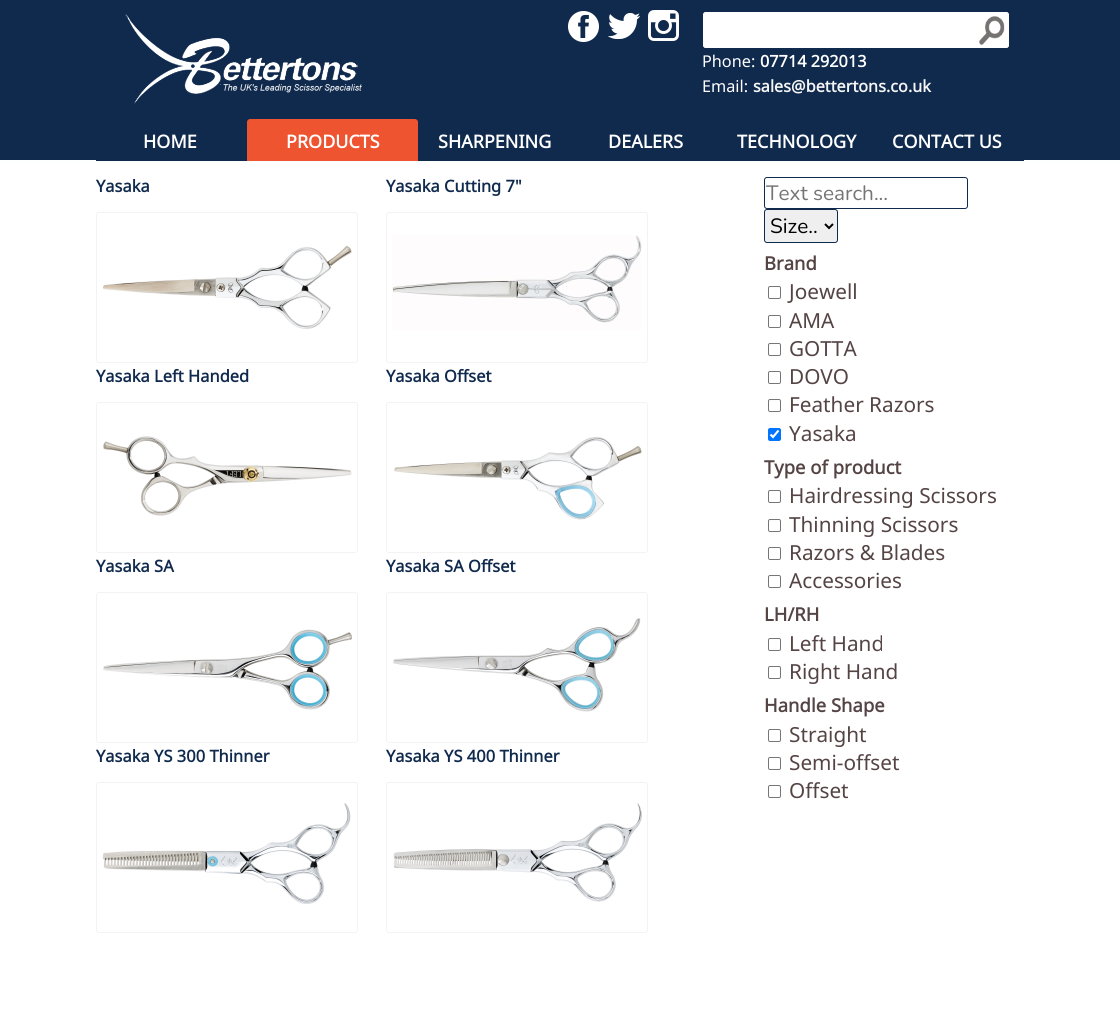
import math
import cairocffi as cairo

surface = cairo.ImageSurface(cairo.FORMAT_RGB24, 1120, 1030)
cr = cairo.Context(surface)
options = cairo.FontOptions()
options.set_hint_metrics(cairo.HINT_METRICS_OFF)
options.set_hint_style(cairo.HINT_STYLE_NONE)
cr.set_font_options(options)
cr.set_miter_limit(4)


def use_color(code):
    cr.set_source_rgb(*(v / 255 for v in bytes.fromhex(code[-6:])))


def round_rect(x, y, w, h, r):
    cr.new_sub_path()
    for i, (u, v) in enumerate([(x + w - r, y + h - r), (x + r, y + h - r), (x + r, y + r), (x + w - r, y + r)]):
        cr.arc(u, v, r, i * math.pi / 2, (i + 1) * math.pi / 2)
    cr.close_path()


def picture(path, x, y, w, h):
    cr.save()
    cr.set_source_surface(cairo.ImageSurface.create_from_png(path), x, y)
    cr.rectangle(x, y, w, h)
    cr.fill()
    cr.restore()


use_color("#ffffff")
cr.paint()
picture("img1.png", 0, 0, 1120, 162)
picture("img2.png", 125, 13, 237, 91)
picture("img3.png", 568, 11, 31, 31)
picture("img4.png", 608, 13, 32, 26)
picture("img5.png", 648, 10, 31, 31)
use_color("#ffffff")
round_rect(703, 12, 306, 36, 3)
cr.fill()
picture("img6.png", 979, 16, 26, 29)
round_rect(703.5, 12.5, 305, 35, 2.5)
cr.set_line_width(1)
cr.stroke()
cr.select_font_face("Noto Sans")
cr.set_font_size(16.25)
cr.move_to(702, 67)
cr.show_text("Phone:")
cr.select_font_face("Noto Sans", cairo.FONT_SLANT_NORMAL, cairo.FONT_WEIGHT_BOLD)
cr.move_to(760, 67)
cr.show_text("07714 292013")
cr.select_font_face("Noto Sans")
cr.move_to(702, 92)
cr.show_text("Email:")
cr.select_font_face("Noto Sans", cairo.FONT_SLANT_NORMAL, cairo.FONT_WEIGHT_BOLD)
use_color("#f6f6f6")
cr.move_to(753, 92)
cr.show_text("sales@bettertons.co.uk")
use_color("#102a4e")
cr.rectangle(96, 160, 928, 1)
cr.fill()
cr.set_font_size(18)
use_color("#ffffff")
cr.move_to(143, 148)
cr.show_text("HOME")
use_color("#ef5430")
cr.new_path()
cr.move_to(250, 119)
cr.line_to(415, 119)
cr.curve_to(416.5, 119, 418, 120.5, 418, 122)
cr.line_to(418, 161)
cr.line_to(247, 161)
cr.line_to(247, 122)
cr.curve_to(247, 120.5, 248.5, 119, 250, 119)
cr.close_path()
cr.fill()
use_color("#ffffff")
cr.move_to(286, 148)
cr.show_text("PRODUCTS")
cr.move_to(438, 148)
cr.show_text("SHARPENING")
cr.move_to(608, 148)
cr.show_text("DEALERS")
cr.move_to(737, 148)
cr.show_text("TECHNOLOGY")
cr.move_to(892, 148)
cr.show_text("CONTACT US")
cr.set_font_size(16.5)
use_color("#102a4e")
cr.move_to(96, 192)
cr.show_text("Yasaka")
round_rect(96.5, 212.5, 261, 150, 2.5)
use_color("#f3f3f3")
cr.stroke()
picture("img7.png", 103, 245, 249, 84)
use_color("#102a4e")
cr.move_to(386, 192)
cr.show_text("Yasaka Cutting 7\"")
round_rect(386.5, 212.5, 261, 150, 2.5)
use_color("#f3f3f3")
cr.stroke()
picture("img8.png", 392, 235, 250, 95)
use_color("#102a4e")
cr.move_to(96, 382)
cr.show_text("Yasaka Left Handed")
round_rect(96.5, 402.5, 261, 150, 2.5)
use_color("#f3f3f3")
cr.stroke()
picture("img9.png", 103, 436, 249, 80)
use_color("#102a4e")
cr.move_to(386, 382)
cr.show_text("Yasaka Offset")
round_rect(386.5, 402.5, 261, 150, 2.5)
use_color("#f3f3f3")
cr.stroke()
picture("img10.png", 394, 437, 248, 83)
use_color("#102a4e")
cr.move_to(96, 572)
cr.show_text("Yasaka SA")
round_rect(96.5, 592.5, 261, 150, 2.5)
use_color("#f3f3f3")
cr.stroke()
picture("img11.png", 103, 629, 249, 81)
use_color("#102a4e")
cr.move_to(386, 572)
cr.show_text("Yasaka SA Offset")
round_rect(386.5, 592.5, 261, 150, 2.5)
use_color("#f3f3f3")
cr.stroke()
picture("img12.png", 393, 618, 248, 94)
use_color("#102a4e")
cr.move_to(96, 762)
cr.show_text("Yasaka YS 300 Thinner")
round_rect(96.5, 782.5, 261, 150, 2.5)
use_color("#f3f3f3")
cr.stroke()
picture("img13.png", 102, 803, 249, 101)
use_color("#102a4e")
cr.move_to(386, 762)
cr.show_text("Yasaka YS 400 Thinner")
round_rect(386.5, 782.5, 261, 150, 2.5)
use_color("#f3f3f3")
cr.stroke()
picture("img14.png", 393, 803, 249, 99)
round_rect(764.5, 177.5, 203, 31, 2.5)
use_color("#102a4e")
cr.stroke()
cr.select_font_face("Nunito")
cr.set_font_size(20.75)
use_color("#757575")
cr.move_to(766, 200)
cr.show_text("Text search...")
use_color("#efefef")
round_rect(764.5, 209.5, 73, 33, 2.5)
cr.fill_preserve()
use_color("#102a4e")
cr.stroke()
cr.new_path()
cr.move_to(825, 224)
cr.line_to(829, 228)
cr.line_to(833, 224)
use_color("#000000")
cr.set_line_width(2)
cr.stroke()
cr.move_to(770, 233)
cr.show_text("Size..")
cr.select_font_face("Noto Sans", cairo.FONT_SLANT_NORMAL, cairo.FONT_WEIGHT_BOLD)
cr.set_font_size(18.5)
use_color("#554444")
cr.move_to(764, 270)
cr.show_text("Brand")
round_rect(768.5, 286.5, 12, 12, 1.5)
use_color("#767676")
cr.set_line_width(1)
cr.stroke()
cr.select_font_face("Noto Sans")
cr.set_font_size(20.75)
use_color("#554444")
cr.move_to(789, 299)
cr.show_text("Joewell")
round_rect(768.5, 315.5, 12, 12, 1.5)
use_color("#767676")
cr.stroke()
use_color("#554444")
cr.move_to(789, 328)
cr.show_text("AMA")
round_rect(768.5, 343.5, 12, 12, 1.5)
use_color("#767676")
cr.stroke()
use_color("#554444")
cr.move_to(789, 356)
cr.show_text("GOTTA")
round_rect(768.5, 371.5, 12, 12, 1.5)
use_color("#767676")
cr.stroke()
use_color("#554444")
cr.move_to(789, 384)
cr.show_text("DOVO")
round_rect(768.5, 399.5, 12, 12, 1.5)
use_color("#767676")
cr.stroke()
use_color("#554444")
cr.move_to(789, 412)
cr.show_text("Feather Razors")
use_color("#0075ff")
round_rect(768, 428, 13, 13, 2)
cr.fill()
cr.new_path()
cr.move_to(770.5, 434.5)
cr.line_to(773, 437)
cr.line_to(778.5, 430.5)
use_color("#ffffff")
cr.set_line_width(2.1)
cr.stroke()
use_color("#554444")
cr.move_to(789, 441)
cr.show_text("Yasaka")
cr.select_font_face("Noto Sans", cairo.FONT_SLANT_NORMAL, cairo.FONT_WEIGHT_BOLD)
cr.set_font_size(18.5)
cr.move_to(764, 474)
cr.show_text("Type of product")
round_rect(768.5, 490.5, 12, 12, 1.5)
use_color("#767676")
cr.set_line_width(1)
cr.stroke()
cr.select_font_face("Noto Sans")
cr.set_font_size(20.75)
use_color("#554444")
cr.move_to(789, 503)
cr.show_text("Hairdressing Scissors")
round_rect(768.5, 519.5, 12, 12, 1.5)
use_color("#767676")
cr.stroke()
use_color("#554444")
cr.move_to(789, 532)
cr.show_text("Thinning Scissors")
round_rect(768.5, 547.5, 12, 12, 1.5)
use_color("#767676")
cr.stroke()
use_color("#554444")
cr.move_to(789, 560)
cr.show_text("Razors & Blades")
round_rect(768.5, 575.5, 12, 12, 1.5)
use_color("#767676")
cr.stroke()
use_color("#554444")
cr.move_to(789, 588)
cr.show_text("Accessories")
cr.select_font_face("Noto Sans", cairo.FONT_SLANT_NORMAL, cairo.FONT_WEIGHT_BOLD)
cr.set_font_size(18.5)
cr.move_to(764, 621)
cr.show_text("LH/RH")
round_rect(768.5, 638.5, 12, 12, 1.5)
use_color("#767676")
cr.stroke()
cr.select_font_face("Noto Sans")
cr.set_font_size(20.75)
use_color("#554444")
cr.move_to(789, 651)
cr.show_text("Left Hand")
round_rect(768.5, 666.5, 12, 12, 1.5)
use_color("#767676")
cr.stroke()
use_color("#554444")
cr.move_to(789, 679)
cr.show_text("Right Hand")
cr.select_font_face("Noto Sans", cairo.FONT_SLANT_NORMAL, cairo.FONT_WEIGHT_BOLD)
cr.set_font_size(18.5)
cr.move_to(764, 712)
cr.show_text("Handle Shape")
round_rect(768.5, 729.5, 12, 12, 1.5)
use_color("#767676")
cr.stroke()
cr.select_font_face("Noto Sans")
cr.set_font_size(20.75)
use_color("#554444")
cr.move_to(789, 742)
cr.show_text("Straight")
round_rect(768.5, 757.5, 12, 12, 1.5)
use_color("#767676")
cr.stroke()
use_color("#554444")
cr.move_to(789, 770)
cr.show_text("Semi-offset")
round_rect(768.5, 785.5, 12, 12, 1.5)
use_color("#767676")
cr.stroke()
use_color("#554444")
cr.move_to(789, 798)
cr.show_text("Offset")
surface.write_to_png("result.png")
